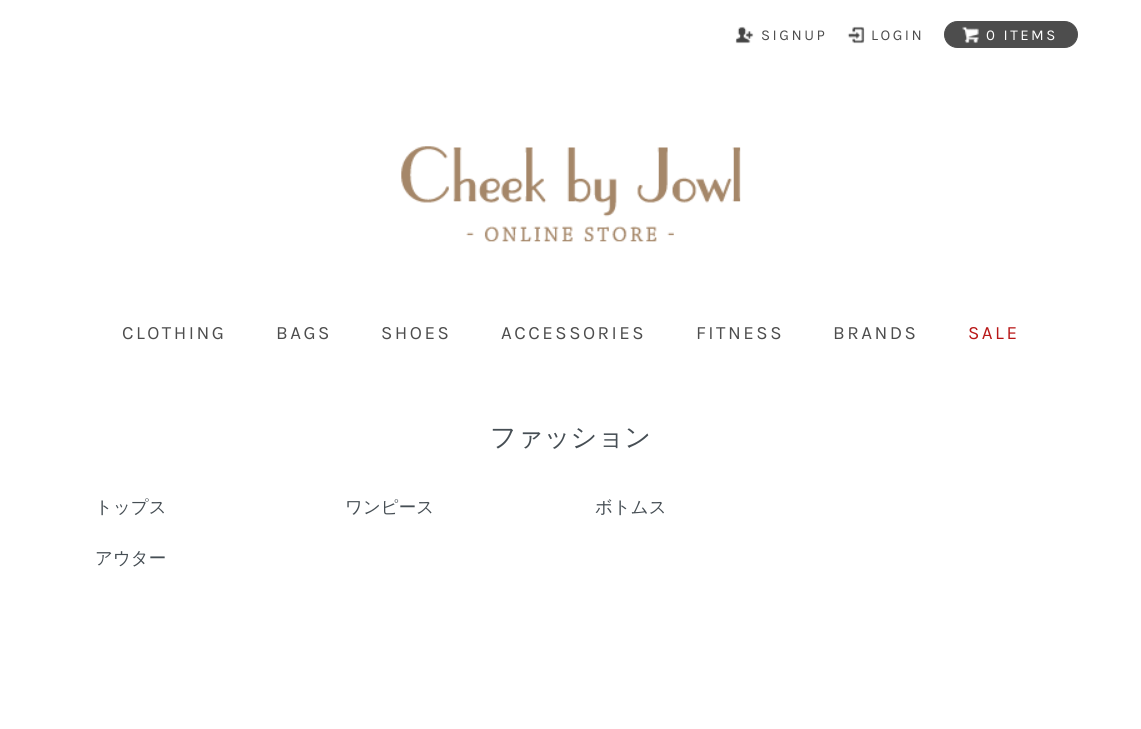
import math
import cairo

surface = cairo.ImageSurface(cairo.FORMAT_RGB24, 1141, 729)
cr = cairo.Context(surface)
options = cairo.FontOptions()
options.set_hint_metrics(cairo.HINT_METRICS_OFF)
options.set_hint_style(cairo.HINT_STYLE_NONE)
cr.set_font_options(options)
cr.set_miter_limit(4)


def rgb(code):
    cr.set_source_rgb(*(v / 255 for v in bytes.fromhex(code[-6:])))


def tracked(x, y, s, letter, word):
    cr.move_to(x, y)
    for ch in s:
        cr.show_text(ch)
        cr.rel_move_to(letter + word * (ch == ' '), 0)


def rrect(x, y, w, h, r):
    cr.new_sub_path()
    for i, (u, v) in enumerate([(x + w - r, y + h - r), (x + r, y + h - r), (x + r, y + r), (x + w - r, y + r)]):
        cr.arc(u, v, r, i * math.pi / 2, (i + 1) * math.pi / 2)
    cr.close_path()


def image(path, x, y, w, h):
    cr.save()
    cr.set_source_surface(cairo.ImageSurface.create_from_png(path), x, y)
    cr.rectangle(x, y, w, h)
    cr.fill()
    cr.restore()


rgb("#ffffff")
cr.paint()
image("img/1.png", 735, 26, 19, 18)
image("img/2.png", 847, 26, 18, 18)
rgb("#4d4d4d")
rrect(944.5, 21.5, 133, 26, 13)
cr.fill_preserve()
cr.set_line_width(1)
cr.stroke()
image("img/3.png", 962, 26, 17, 18)
image("img/4.png", 401, 146, 340, 96)
cr.select_font_face("Karla")
cr.set_font_size(15)
tracked(761, 40, "SIGNUP", 2.5, 0)
tracked(871, 40, "LOGIN", 2.5, 0)
rgb("#ffffff")
tracked(986, 40, "0 ITEMS", 2.5, 0)
cr.set_font_size(18.75)
rgb("#4d4d4d")
for x, y, s in [
    (122, 339, "CLOTHING"),
    (276, 339, "BAGS"),
    (381, 339, "SHOES"),
    (501, 339, "ACCESSORIES"),
    (696, 339, "FITNESS"),
    (833, 339, "BRANDS"),
]:
    tracked(x, y, s, 2.5, 0)
rgb("#b81717")
tracked(968, 339, "SALE", 2.5, 0)
cr.select_font_face("WenQuanYi Zen Hei Medium")
cr.set_font_size(26.25)
rgb("#464e54")
cr.move_to(490, 446)
cr.show_text("ファッション")
cr.set_font_size(17.5)
for x, y, s in [
    (95, 513, "トップス"),
    (345, 513, "ワンピース"),
    (595, 513, "ボトムス"),
    (95, 564, "アウター"),
]:
    cr.move_to(x, y)
    cr.show_text(s)
surface.write_to_png("page.png")
